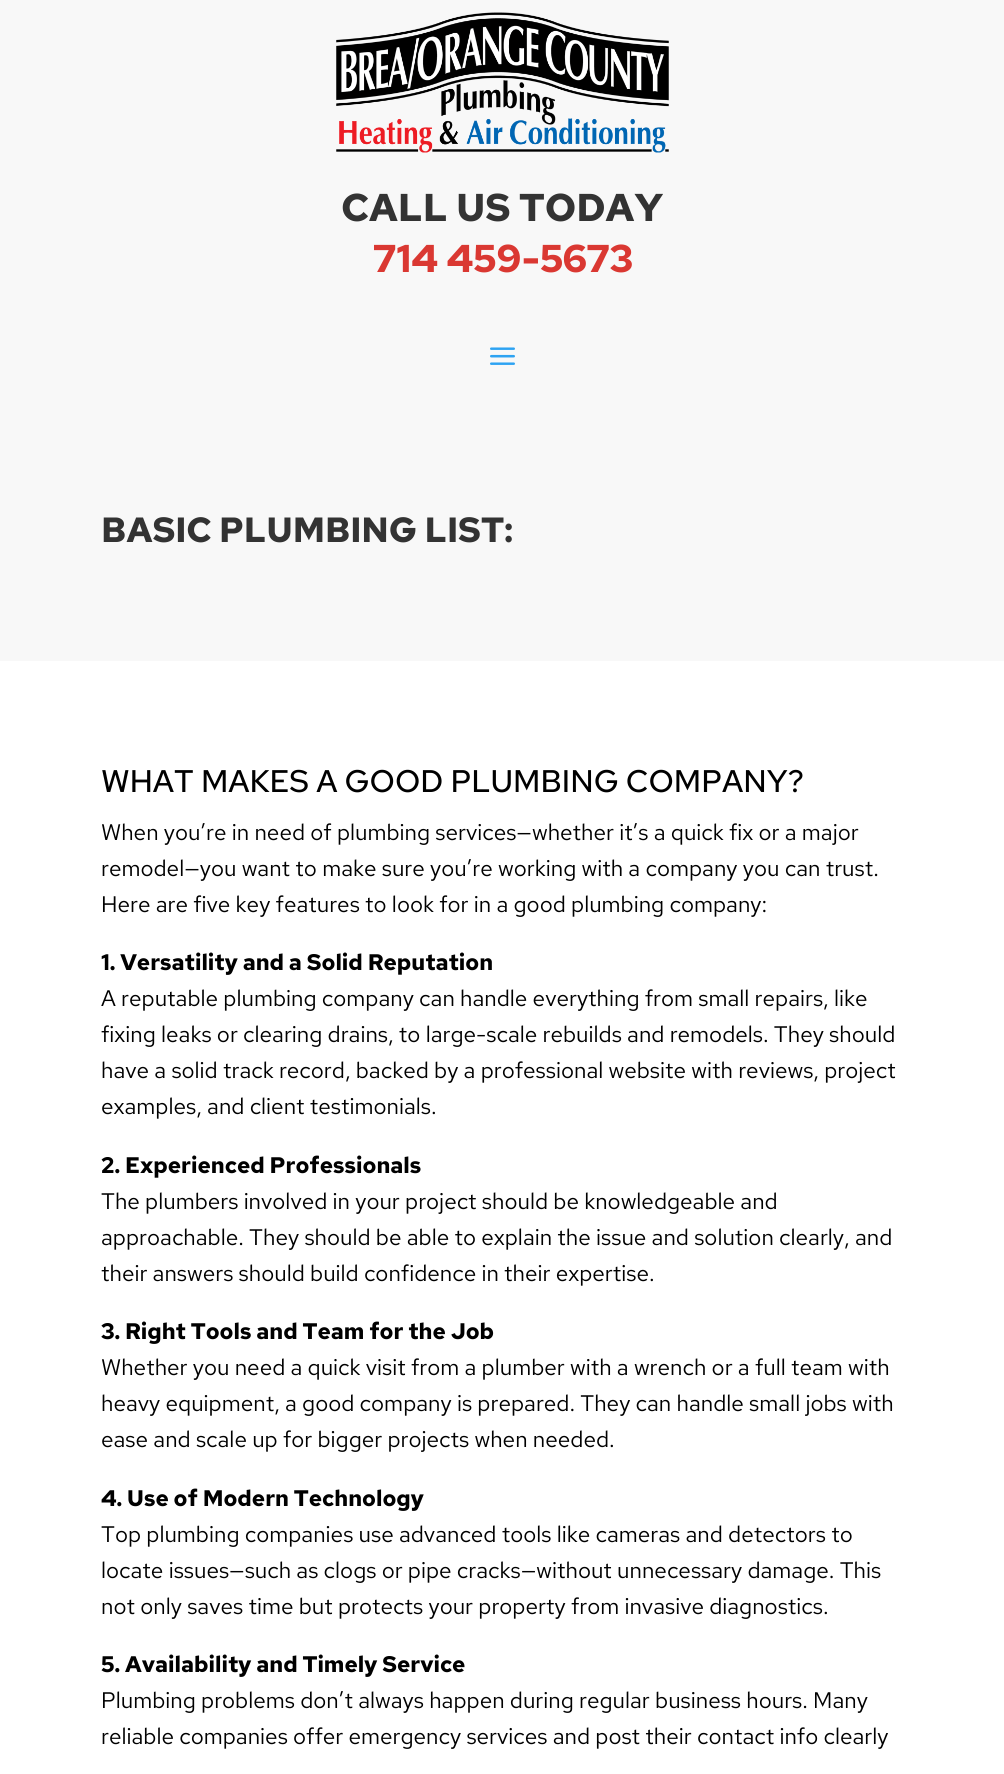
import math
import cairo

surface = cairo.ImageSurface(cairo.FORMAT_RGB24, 1004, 1774)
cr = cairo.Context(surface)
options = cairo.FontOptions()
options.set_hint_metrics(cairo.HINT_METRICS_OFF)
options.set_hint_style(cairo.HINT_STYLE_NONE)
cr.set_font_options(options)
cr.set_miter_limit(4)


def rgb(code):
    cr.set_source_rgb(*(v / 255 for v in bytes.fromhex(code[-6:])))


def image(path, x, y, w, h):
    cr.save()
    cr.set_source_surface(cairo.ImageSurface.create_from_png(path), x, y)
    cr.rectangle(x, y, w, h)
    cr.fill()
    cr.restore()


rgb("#ffffff")
cr.paint()
rgb("#f8f8f8")
cr.rectangle(0, 0, 1004, 661)
cr.fill()
image("img/1.png", 336, 12, 333, 141)
image("img/2.png", 490, 347, 25, 18)
cr.select_font_face("Red Hat Text", cairo.FONT_SLANT_NORMAL, cairo.FONT_WEIGHT_BOLD)
cr.set_font_size(38.75)
rgb("#333333")
cr.move_to(341, 221)
cr.show_text("CALL US TODAY")
rgb("#da3832")
cr.move_to(373, 272)
cr.show_text("714 459-5673")
cr.set_font_size(35)
rgb("#333333")
cr.move_to(101, 542)
cr.show_text("BASIC PLUMBING LIST:")
cr.select_font_face("Red Hat Text Medium")
cr.set_font_size(31.25)
rgb("#000000")
cr.move_to(101, 792)
cr.show_text("WHAT MAKES A GOOD PLUMBING COMPANY?")
cr.select_font_face("Red Hat Text")
cr.set_font_size(22.5)
for x, y, s in [
    (101, 840, "When you’re in need of plumbing services—whether it’s a quick fix or a major"),
    (101, 876, "remodel—you want to make sure you’re working with a company you can trust."),
    (101, 912, "Here are five key features to look for in a good plumbing company:"),
]:
    cr.move_to(x, y)
    cr.show_text(s)
cr.select_font_face("Red Hat Text", cairo.FONT_SLANT_NORMAL, cairo.FONT_WEIGHT_BOLD)
cr.move_to(101, 970)
cr.show_text("1. Versatility and a Solid Reputation")
cr.select_font_face("Red Hat Text")
for x, y, s in [
    (101, 1006, "A reputable plumbing company can handle everything from small repairs, like"),
    (101, 1042, "fixing leaks or clearing drains, to large-scale rebuilds and remodels. They should"),
    (101, 1078, "have a solid track record, backed by a professional website with reviews, project"),
    (101, 1114, "examples, and client testimonials."),
]:
    cr.move_to(x, y)
    cr.show_text(s)
cr.select_font_face("Red Hat Text", cairo.FONT_SLANT_NORMAL, cairo.FONT_WEIGHT_BOLD)
cr.move_to(101, 1173)
cr.show_text("2. Experienced Professionals")
cr.select_font_face("Red Hat Text")
for x, y, s in [
    (101, 1209, "The plumbers involved in your project should be knowledgeable and"),
    (101, 1245, "approachable. They should be able to explain the issue and solution clearly, and"),
    (101, 1281, "their answers should build confidence in their expertise."),
]:
    cr.move_to(x, y)
    cr.show_text(s)
cr.select_font_face("Red Hat Text", cairo.FONT_SLANT_NORMAL, cairo.FONT_WEIGHT_BOLD)
cr.move_to(101, 1339)
cr.show_text("3. Right Tools and Team for the Job")
cr.select_font_face("Red Hat Text")
for x, y, s in [
    (101, 1375, "Whether you need a quick visit from a plumber with a wrench or a full team with"),
    (101, 1411, "heavy equipment, a good company is prepared. They can handle small jobs with"),
    (101, 1447, "ease and scale up for bigger projects when needed."),
]:
    cr.move_to(x, y)
    cr.show_text(s)
cr.select_font_face("Red Hat Text", cairo.FONT_SLANT_NORMAL, cairo.FONT_WEIGHT_BOLD)
cr.move_to(101, 1506)
cr.show_text("4. Use of Modern Technology")
cr.select_font_face("Red Hat Text")
for x, y, s in [
    (101, 1542, "Top plumbing companies use advanced tools like cameras and detectors to"),
    (101, 1578, "locate issues—such as clogs or pipe cracks—without unnecessary damage. This"),
    (101, 1614, "not only saves time but protects your property from invasive diagnostics."),
]:
    cr.move_to(x, y)
    cr.show_text(s)
cr.select_font_face("Red Hat Text", cairo.FONT_SLANT_NORMAL, cairo.FONT_WEIGHT_BOLD)
cr.move_to(101, 1672)
cr.show_text("5. Availability and Timely Service")
cr.select_font_face("Red Hat Text")
cr.move_to(101, 1708)
cr.show_text("Plumbing problems don’t always happen during regular business hours. Many")
cr.move_to(101, 1744)
cr.show_text("reliable companies offer emergency services and post their contact info clearly")
surface.write_to_png("page.png")
